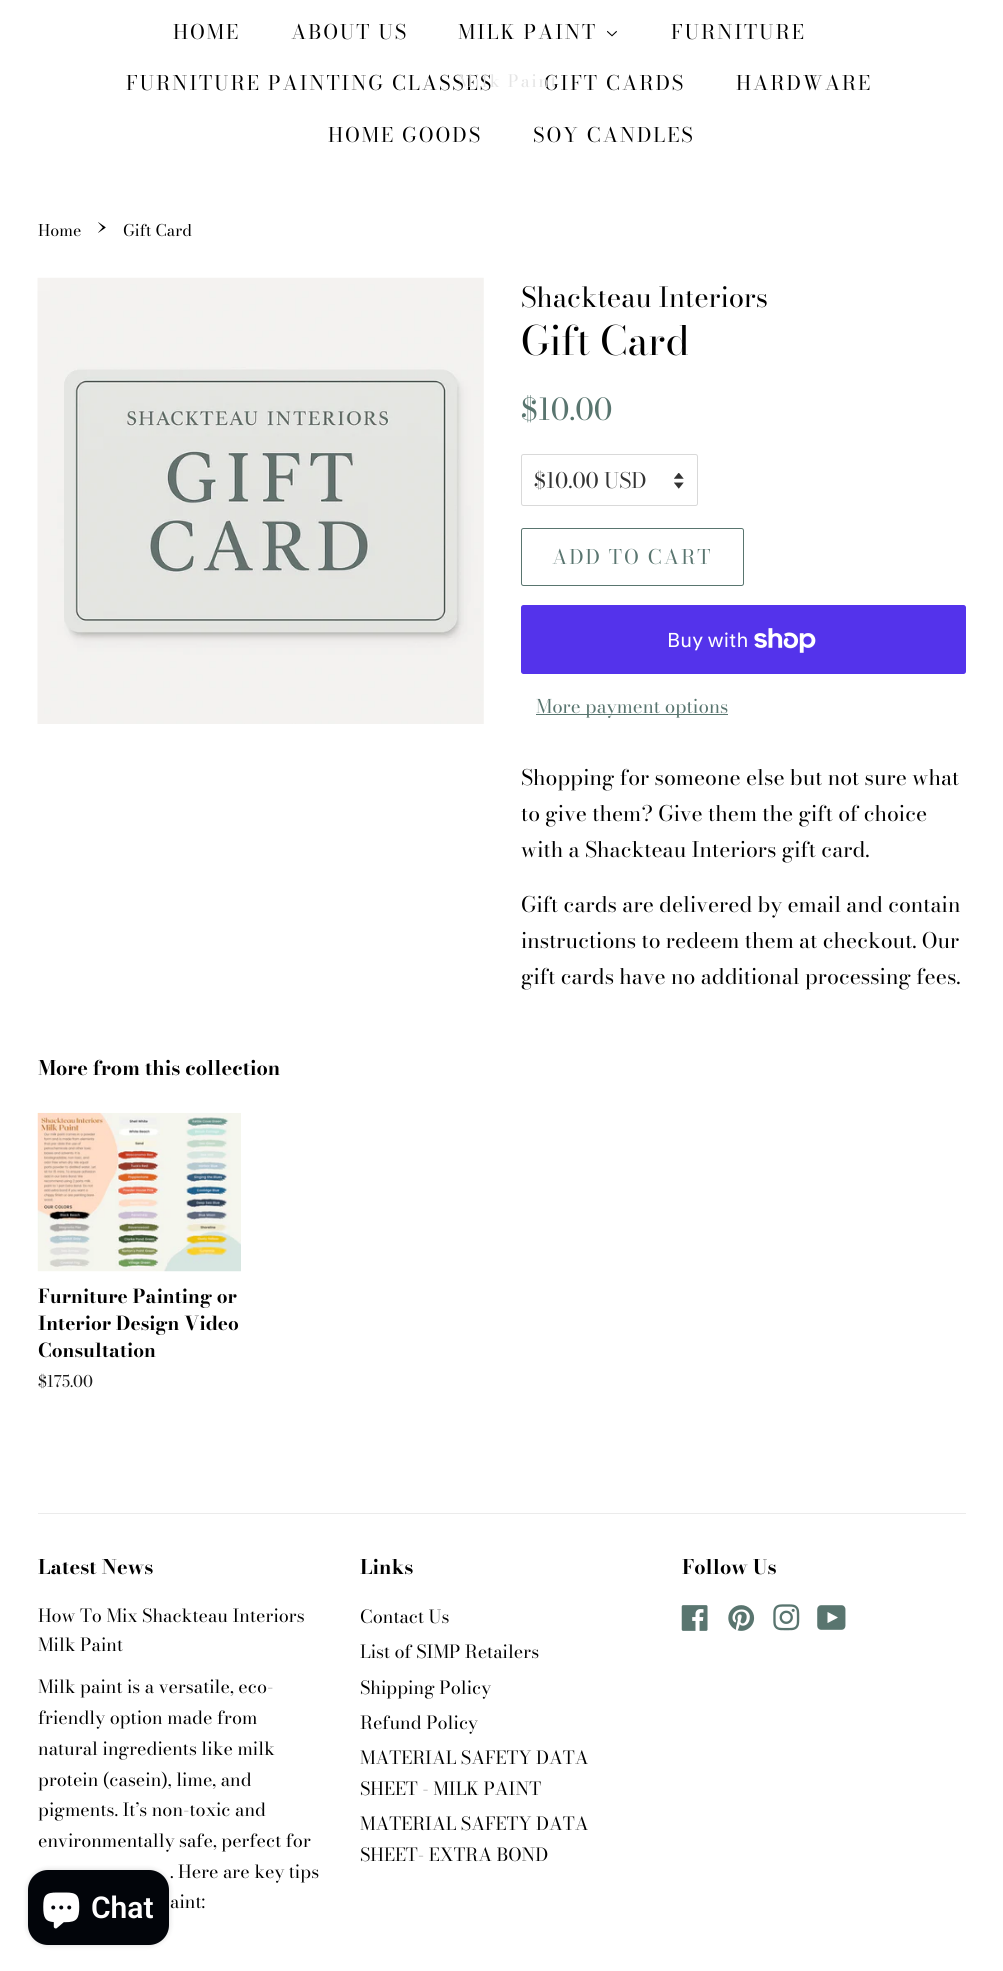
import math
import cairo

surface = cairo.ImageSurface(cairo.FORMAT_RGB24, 1003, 1971)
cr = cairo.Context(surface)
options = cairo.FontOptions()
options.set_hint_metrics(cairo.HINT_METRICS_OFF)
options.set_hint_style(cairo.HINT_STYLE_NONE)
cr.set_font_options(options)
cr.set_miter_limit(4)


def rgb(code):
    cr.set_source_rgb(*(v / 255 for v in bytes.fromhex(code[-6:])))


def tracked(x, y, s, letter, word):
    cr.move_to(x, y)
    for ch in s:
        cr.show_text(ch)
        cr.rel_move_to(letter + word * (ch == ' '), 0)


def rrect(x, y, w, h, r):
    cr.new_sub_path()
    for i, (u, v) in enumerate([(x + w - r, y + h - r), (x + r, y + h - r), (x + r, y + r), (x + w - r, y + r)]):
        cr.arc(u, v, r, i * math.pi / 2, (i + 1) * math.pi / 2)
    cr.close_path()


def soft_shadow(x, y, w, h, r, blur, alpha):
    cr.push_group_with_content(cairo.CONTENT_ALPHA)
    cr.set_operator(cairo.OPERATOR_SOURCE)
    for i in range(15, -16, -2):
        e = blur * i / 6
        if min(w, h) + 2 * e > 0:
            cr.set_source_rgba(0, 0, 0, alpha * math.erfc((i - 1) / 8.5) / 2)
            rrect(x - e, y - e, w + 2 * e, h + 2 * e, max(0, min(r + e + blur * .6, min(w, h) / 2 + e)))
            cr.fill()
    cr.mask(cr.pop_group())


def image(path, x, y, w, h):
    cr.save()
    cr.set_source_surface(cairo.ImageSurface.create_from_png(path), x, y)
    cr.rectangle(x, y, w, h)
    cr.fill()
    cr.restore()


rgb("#ffffff")
cr.paint()
image("img/1.png", 607, 30, 10, 7)
image("img/2.png", 37, 277, 447, 447)
image("img/3.png", 674, 473, 10, 16)
rrect(521.5, 454.5, 176, 51, 2)
rgb("#d9d9d9")
cr.set_line_width(1)
cr.stroke()
rrect(521.5, 528.5, 222, 57, 2)
rgb("#59756f")
cr.stroke()
rgb("#5433eb")
rrect(521, 605, 445, 69, 2.5)
cr.fill()
image("img/4.png", 754, 628, 62, 25)
rgb("#59756f")
cr.rectangle(536, 714, 192, 1)
cr.fill()
image("img/5.png", 37, 1112, 204, 160)
rgb("#ebebeb")
cr.rectangle(38, 1513, 928, 1)
cr.fill()
image("img/6.png", 681, 1605, 27, 26)
image("img/7.png", 728, 1605, 27, 26)
image("img/8.png", 773, 1604, 27, 27)
image("img/9.png", 817, 1605, 29, 25)
rgb("#000000")
soft_shadow(28, 1870, 141, 75, 20, 3, 0.15)
rgb("#02050a")
rrect(28, 1870, 141, 75, 20)
cr.fill()
image("img/10.png", 43, 1892, 37, 37)
cr.select_font_face("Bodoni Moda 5")
cr.set_font_size(20)
rgb("#000000")
for x, y, s in [
    (173, 39, "HOME"),
    (291, 39, "ABOUT US"),
    (458, 39, "MILK PAINT"),
    (671, 39, "FURNITURE"),
    (126, 90, "FURNITURE PAINTING CLASSES"),
    (544, 90, "GIFT CARDS"),
]:
    tracked(x, y, s, 2, 0)
cr.select_font_face("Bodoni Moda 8")
cr.set_font_size(17)
rgb("#e4e4e4")
tracked(458, 87, "Milk Paint", 2, 0)
cr.select_font_face("Bodoni Moda 5")
cr.set_font_size(20)
rgb("#000000")
for x, y, s in [
    (736, 90, "HARDWARE"),
    (328, 142, "HOME GOODS"),
    (533, 142, "SOY CANDLES"),
]:
    tracked(x, y, s, 2, 0)
cr.select_font_face("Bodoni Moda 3")
cr.set_font_size(16)
cr.move_to(38, 236)
cr.show_text("Home")
cr.set_font_size(22)
cr.move_to(97, 236)
cr.show_text("›")
cr.set_font_size(16)
cr.move_to(123, 236)
cr.show_text("Gift Card")
cr.select_font_face("Bodoni Moda")
cr.set_font_size(27.5)
cr.move_to(521, 307)
cr.show_text("Shackteau Interiors")
cr.select_font_face("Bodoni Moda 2")
cr.set_font_size(40)
cr.move_to(521, 355)
cr.show_text("Gift Card")
cr.select_font_face("Bodoni Moda 3")
cr.set_font_size(30)
rgb("#59756f")
cr.move_to(521, 420)
cr.show_text("$10.00")
cr.select_font_face("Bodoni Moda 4")
cr.set_font_size(21.25)
rgb("#333333")
cr.move_to(534, 488)
cr.show_text("$10.00 USD")
cr.select_font_face("Bodoni Moda 5")
cr.set_font_size(20)
rgb("#59756f")
tracked(552, 564, "ADD TO CART", 2, 0)
cr.select_font_face("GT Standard")
rgb("#ffffff")
cr.move_to(667, 647)
cr.show_text("Buy with")
cr.select_font_face("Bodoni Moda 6")
cr.set_font_size(18.75)
rgb("#59756f")
cr.move_to(536, 713)
cr.show_text("More payment options")
cr.select_font_face("Bodoni Moda 4")
cr.set_font_size(21.25)
rgb("#000000")
for x, y, s in [
    (521, 785, "Shopping for someone else but not sure what"),
    (521, 821, "to give them? Give them the gift of choice"),
    (521, 857, "with a Shackteau Interiors gift card."),
    (521, 912, "Gift cards are delivered by email and contain"),
    (521, 948, "instructions to redeem them at checkout. Our"),
    (521, 984, "gift cards have no additional processing fees."),
]:
    cr.move_to(x, y)
    cr.show_text(s)
cr.select_font_face("Bodoni Moda", cairo.FONT_SLANT_NORMAL, cairo.FONT_WEIGHT_BOLD)
cr.set_font_size(20)
cr.move_to(38, 1075)
cr.show_text("More from this collection")
cr.select_font_face("Bodoni Moda 2", cairo.FONT_SLANT_NORMAL, cairo.FONT_WEIGHT_BOLD)
cr.set_font_size(19.1)
for x, y, s in [
    (38, 1303, "Furniture Painting or"),
    (38, 1330, "Interior Design Video"),
    (38, 1357, "Consultation"),
]:
    cr.move_to(x, y)
    cr.show_text(s)
cr.select_font_face("Bodoni Moda 3")
cr.set_font_size(16)
rgb("#1a1a1a")
cr.move_to(38, 1387)
cr.show_text("$175.00")
cr.select_font_face("Bodoni Moda", cairo.FONT_SLANT_NORMAL, cairo.FONT_WEIGHT_BOLD)
cr.set_font_size(20)
rgb("#000000")
cr.move_to(38, 1574)
cr.show_text("Latest News")
cr.select_font_face("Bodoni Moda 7")
cr.set_font_size(18)
for x, y, s in [
    (38, 1622, "How To Mix Shackteau Interiors"),
    (38, 1651, "Milk Paint"),
    (38, 1693, "Milk paint is a versatile, eco-"),
    (38, 1724, "friendly option made from"),
    (38, 1755, "natural ingredients like milk"),
    (38, 1786, "protein (casein), lime, and"),
    (38, 1816, "pigments. It’s non-toxic and"),
    (38, 1847, "environmentally safe, perfect for"),
    (170, 1878, ". Here are key tips"),
    (170, 1908, "aint:"),
]:
    cr.move_to(x, y)
    cr.show_text(s)
cr.select_font_face("Bodoni Moda", cairo.FONT_SLANT_NORMAL, cairo.FONT_WEIGHT_BOLD)
cr.set_font_size(20)
cr.move_to(360, 1574)
cr.show_text("Links")
cr.select_font_face("Bodoni Moda 7")
cr.set_font_size(18)
for x, y, s in [
    (360, 1623, "Contact Us"),
    (360, 1658, "List of SIMP Retailers"),
    (360, 1694, "Shipping Policy"),
    (360, 1729, "Refund Policy"),
    (360, 1764, "MATERIAL SAFETY DATA"),
    (360, 1795, "SHEET - MILK PAINT"),
    (360, 1830, "MATERIAL SAFETY DATA"),
    (360, 1861, "SHEET- EXTRA BOND"),
]:
    cr.move_to(x, y)
    cr.show_text(s)
cr.select_font_face("Bodoni Moda", cairo.FONT_SLANT_NORMAL, cairo.FONT_WEIGHT_BOLD)
cr.set_font_size(20)
cr.move_to(682, 1574)
cr.show_text("Follow Us")
cr.select_font_face("Roboto SemiBold")
cr.set_font_size(30)
rgb("#ffffff")
cr.move_to(91, 1918)
cr.show_text("Chat")
surface.write_to_png("page.png")
